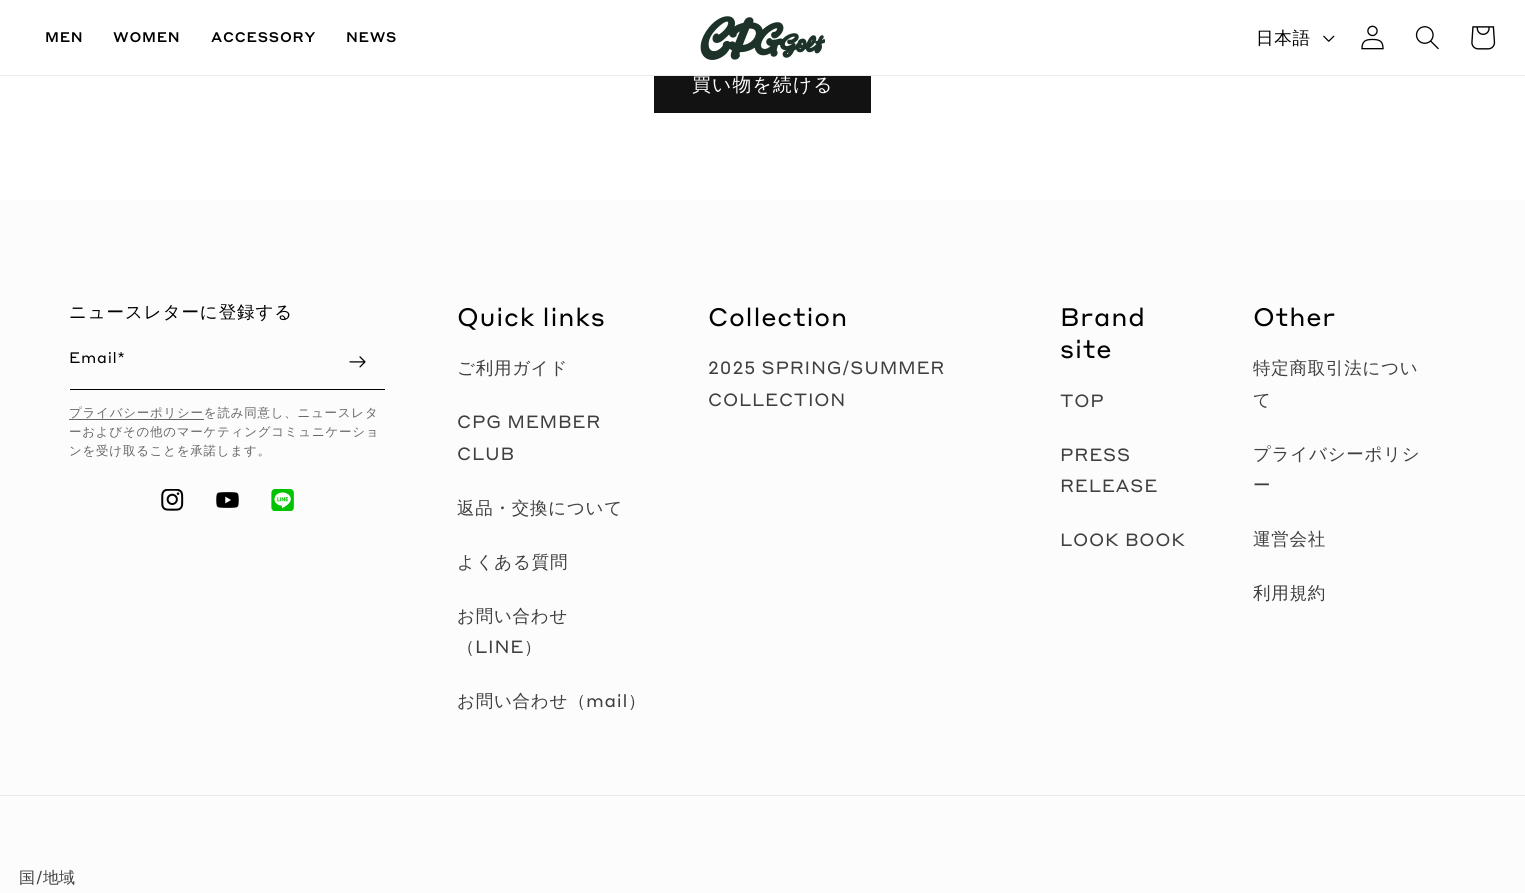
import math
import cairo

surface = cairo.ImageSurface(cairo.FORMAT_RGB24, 1525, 893)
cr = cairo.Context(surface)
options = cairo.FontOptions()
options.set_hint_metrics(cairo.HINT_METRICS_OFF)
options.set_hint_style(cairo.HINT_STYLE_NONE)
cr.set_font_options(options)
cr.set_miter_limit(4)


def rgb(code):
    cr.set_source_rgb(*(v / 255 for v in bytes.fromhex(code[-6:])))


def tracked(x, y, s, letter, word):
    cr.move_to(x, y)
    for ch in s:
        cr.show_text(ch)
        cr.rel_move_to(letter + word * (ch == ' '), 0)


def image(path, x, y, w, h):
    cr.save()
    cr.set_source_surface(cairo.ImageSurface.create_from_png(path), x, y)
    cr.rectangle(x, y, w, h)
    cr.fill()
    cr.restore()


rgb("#ffffff")
cr.paint()
image("img/1.png", 700, 16, 125, 44)
image("img/2.png", 1323, 35, 12, 7)
image("img/3.png", 1361, 25, 23, 25)
image("img/4.png", 1415, 26, 24, 24)
image("img/5.png", 1471, 26, 25, 24)
rgb("#121212")
cr.rectangle(654, 76, 217, 37)
cr.fill()
rgb("#fcfcfc")
cr.rectangle(0, 200, 1525, 693)
cr.fill()
image("img/6.png", 349, 356, 17, 12)
rgb("#000000")
cr.rectangle(70, 389, 315, 1)
cr.fill()
rgb("#666666")
cr.rectangle(69, 419, 135, 1)
cr.fill()
image("img/7.png", 161, 489, 23, 22)
image("img/8.png", 216, 492, 23, 16)
image("img/9.png", 271, 489, 23, 22)
rgb("#e8e8e8")
cr.rectangle(0, 795, 1525, 1)
cr.fill()
cr.select_font_face("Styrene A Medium")
cr.set_font_size(13.75)
rgb("#000000")
for x, y, s in [
    (45, 42, "MEN"),
    (113, 42, "WOMEN"),
    (211, 42, "ACCESSORY"),
    (346, 42, "NEWS"),
]:
    tracked(x, y, s, 0.75, 0)
cr.select_font_face("WenQuanYi Zen Hei Medium")
cr.set_font_size(17.5)
tracked(1256, 44, "日本語", 0.75, 0)
cr.set_font_size(18.75)
rgb("#ffffff")
tracked(692, 91, "買い物を続ける", 1.25, 0)
rgb("#ebebeb")
cr.rectangle(0, 75, 1525, 1)
cr.fill()
cr.set_font_size(17.5)
rgb("#000000")
tracked(69, 318, "ニュースレターに登録する", 0.9, 0)
cr.select_font_face("Styrene A")
cr.set_font_size(15)
tracked(69, 363, "Email*", 0.75, 0)
cr.select_font_face("WenQuanYi Zen Hei Medium")
cr.set_font_size(12.5)
rgb("#666666")
for x, y, s in [
    (69, 417, "プライバシーポリシーを読み同意し、ニュースレタ"),
    (69, 436, "ーおよびその他のマーケティングコミュニケーショ"),
    (69, 455, "ンを受け取ることを承諾します。"),
]:
    tracked(x, y, s, 0.75, 0)
cr.select_font_face("Styrene A")
cr.set_font_size(25)
rgb("#000000")
tracked(457, 326, "Quick links", 0.75, 0)
cr.select_font_face("WenQuanYi Zen Hei Medium")
cr.set_font_size(17.5)
rgb("#3f3f3f")
tracked(457, 374, "ご利用ガイド", 0.75, 0)
cr.select_font_face("Styrene A")
tracked(457, 428, "CPG MEMBER", 0.75, 0)
tracked(457, 460, "CLUB", 0.75, 0)
cr.select_font_face("WenQuanYi Zen Hei Medium")
for x, y, s in [
    (457, 514, "返品・交換について"),
    (457, 568, "よくある質問"),
    (457, 622, "お問い合わせ"),
    (457, 653, "（"),
]:
    tracked(x, y, s, 0.75, 0)
cr.select_font_face("Styrene A")
tracked(475, 653, "LINE", 0.75, 0)
cr.select_font_face("WenQuanYi Zen Hei Medium")
tracked(524, 653, "）", 0.75, 0)
tracked(457, 707, "お問い合わせ（", 0.75, 0)
cr.select_font_face("Styrene A")
tracked(586, 707, "mail", 0.75, 0)
cr.select_font_face("WenQuanYi Zen Hei Medium")
tracked(628, 707, "）", 0.75, 0)
cr.select_font_face("Styrene A")
cr.set_font_size(25)
rgb("#000000")
tracked(708, 326, "Collection", 0.75, 0)
cr.set_font_size(17.5)
rgb("#3f3f3f")
tracked(708, 374, "2025 SPRING/SUMMER", 0.75, 0)
tracked(708, 406, "COLLECTION", 0.75, 0)
cr.set_font_size(25)
rgb("#000000")
tracked(1060, 326, "Brand", 0.75, 0)
tracked(1060, 358, "site", 0.75, 0)
cr.set_font_size(17.5)
rgb("#3f3f3f")
for x, y, s in [
    (1060, 407, "TOP"),
    (1060, 461, "PRESS"),
    (1060, 492, "RELEASE"),
    (1060, 546, "LOOK BOOK"),
]:
    tracked(x, y, s, 0.75, 0)
cr.set_font_size(25)
rgb("#000000")
tracked(1253, 326, "Other", 0.75, 0)
cr.select_font_face("WenQuanYi Zen Hei Medium")
cr.set_font_size(17.5)
rgb("#3f3f3f")
for x, y, s in [
    (1253, 374, "特定商取引法につい"),
    (1253, 406, "て"),
    (1253, 460, "プライバシーポリシ"),
    (1253, 491, "ー"),
    (1253, 545, "運営会社"),
    (1253, 599, "利用規約"),
]:
    tracked(x, y, s, 0.75, 0)
cr.set_font_size(16)
cr.move_to(19, 883)
cr.show_text("国")
cr.select_font_face("Styrene A")
cr.move_to(36, 883)
cr.show_text("/")
cr.select_font_face("WenQuanYi Zen Hei Medium")
cr.move_to(43, 883)
cr.show_text("地域")
surface.write_to_png("page.png")
